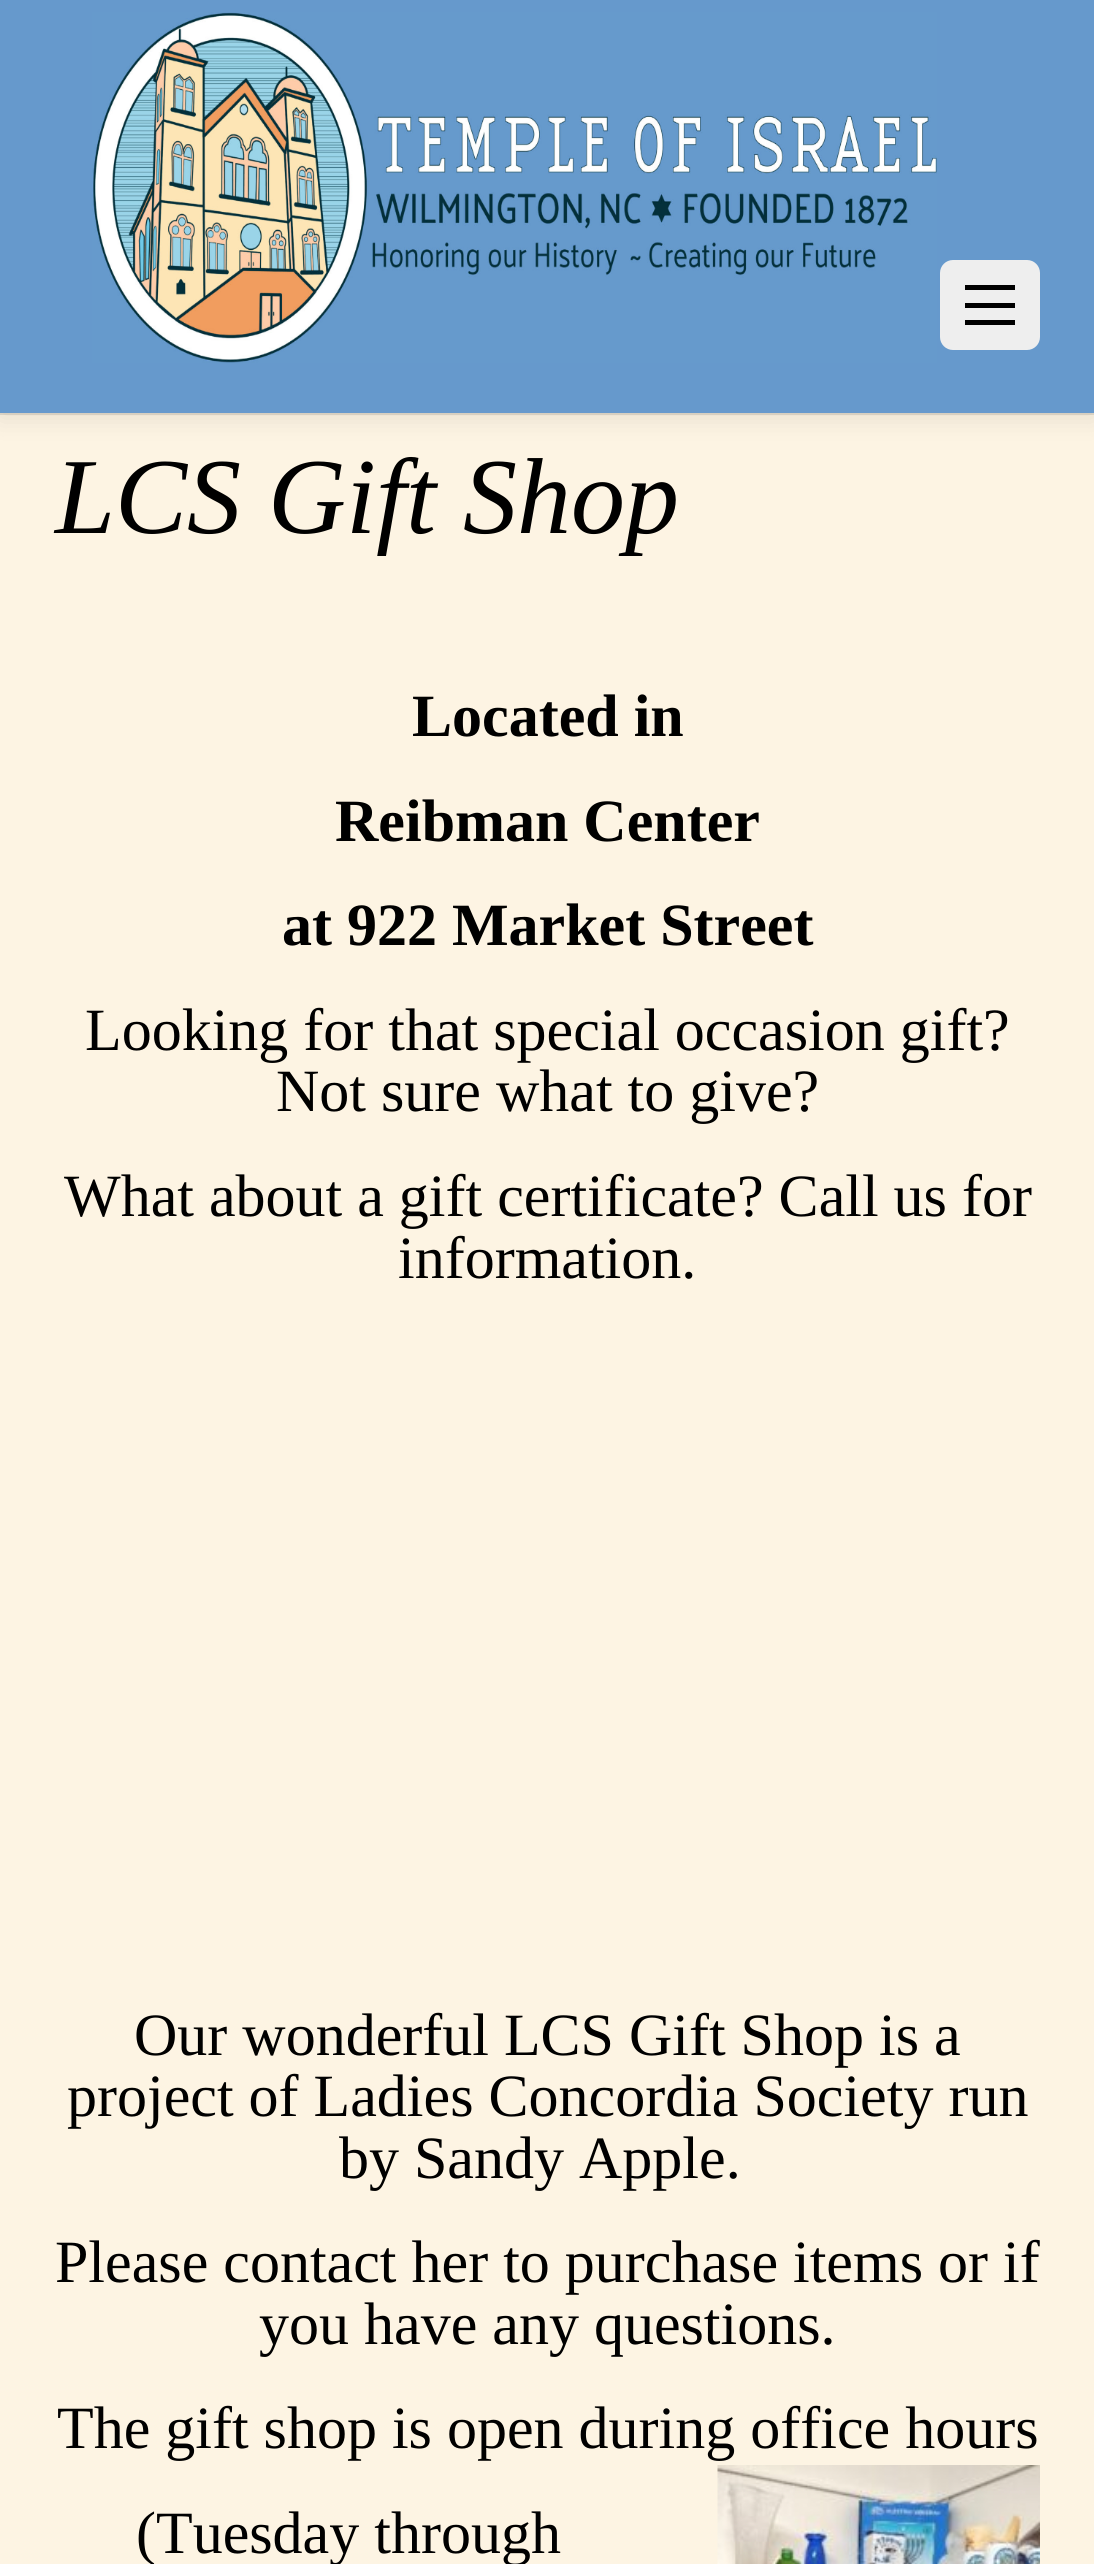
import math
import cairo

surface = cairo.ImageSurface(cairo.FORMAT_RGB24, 1094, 2564)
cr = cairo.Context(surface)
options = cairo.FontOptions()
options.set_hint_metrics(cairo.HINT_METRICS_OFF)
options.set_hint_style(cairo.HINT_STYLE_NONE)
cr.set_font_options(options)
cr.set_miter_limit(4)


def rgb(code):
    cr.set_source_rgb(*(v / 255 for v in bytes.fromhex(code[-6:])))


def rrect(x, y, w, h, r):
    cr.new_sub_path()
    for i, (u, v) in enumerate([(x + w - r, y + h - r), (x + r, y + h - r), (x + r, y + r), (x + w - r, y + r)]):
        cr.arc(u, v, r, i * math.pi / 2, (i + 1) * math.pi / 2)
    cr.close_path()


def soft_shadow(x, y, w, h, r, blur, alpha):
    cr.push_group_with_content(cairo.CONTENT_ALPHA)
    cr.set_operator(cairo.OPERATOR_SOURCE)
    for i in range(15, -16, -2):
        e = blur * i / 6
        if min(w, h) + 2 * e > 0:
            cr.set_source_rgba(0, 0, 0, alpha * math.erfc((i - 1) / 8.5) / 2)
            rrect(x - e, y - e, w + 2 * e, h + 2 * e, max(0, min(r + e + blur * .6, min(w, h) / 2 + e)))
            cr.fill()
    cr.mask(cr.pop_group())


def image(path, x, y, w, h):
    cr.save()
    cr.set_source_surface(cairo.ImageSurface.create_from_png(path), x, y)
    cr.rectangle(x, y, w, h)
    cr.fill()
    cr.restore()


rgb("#fdf4e3")
cr.paint()
rgb("#000000")
soft_shadow(0, 5, 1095, 413, 0, 12.5, 0.1)
cr.rectangle(-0.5, -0.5, 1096, 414)
cr.set_source_rgba(0, 0, 0, 0.1)
cr.set_line_width(3)
cr.stroke()
rgb("#6699cc")
cr.rectangle(0, 0, 1094, 413)
cr.fill()
image("img/1.png", 92, 12, 845, 351)
rgb("#eeeeee")
rrect(940, 260, 100, 90, 13)
cr.fill()
for x, y, w, h, color in [
    (965, 320, 50, 5, "#000000"),
    (965, 285, 50, 5, "#000000"),
    (965, 303, 50, 5, "#000000"),
]:
    rgb(color)
    cr.rectangle(x, y, w, h)
    cr.fill()
image("img/2.png", 717, 2465, 323, 99)
cr.select_font_face("Liberation Serif", cairo.FONT_SLANT_ITALIC)
cr.set_font_size(108)
cr.move_to(55, 533)
cr.show_text("LCS Gift Shop")
cr.select_font_face("Liberation Serif", cairo.FONT_SLANT_NORMAL, cairo.FONT_WEIGHT_BOLD)
cr.set_font_size(60)
for x, y, s in [
    (412, 736, "Located in"),
    (335, 841, "Reibman Center"),
    (282, 945, "at 922 Market Street"),
]:
    cr.move_to(x, y)
    cr.show_text(s)
cr.select_font_face("Liberation Serif")
for x, y, s in [
    (85, 1050, "Looking for that special occasion gift?"),
    (276, 1111, "Not sure what to give?"),
    (64, 1216, "What about a gift certificate? Call us for"),
    (398, 1278, "information."),
    (134, 2055, "Our wonderful LCS Gift Shop is a"),
    (67, 2116, "project of Ladies Concordia Society run"),
    (339, 2178, "by Sandy Apple."),
    (55, 2282, "Please contact her to purchase items or if"),
    (259, 2344, "you have any questions."),
    (57, 2448, "The gift shop is open during office hours"),
    (136, 2553, "(Tuesday through"),
]:
    cr.move_to(x, y)
    cr.show_text(s)
surface.write_to_png("page.png")
